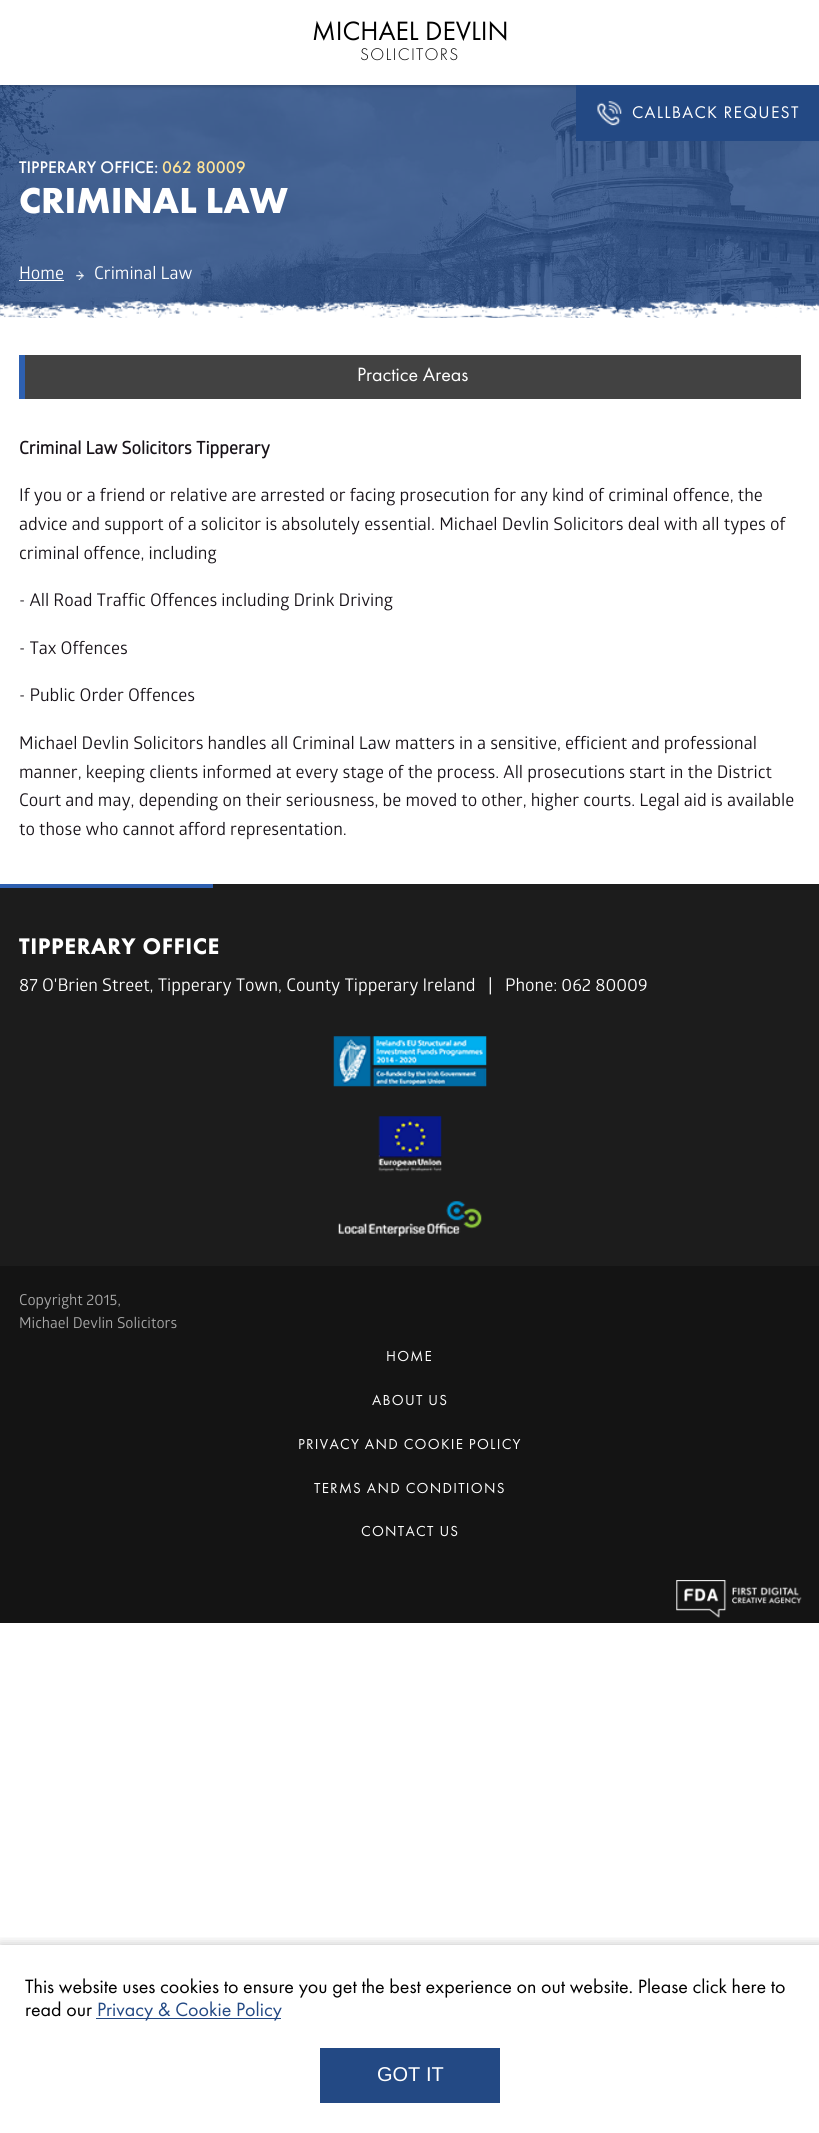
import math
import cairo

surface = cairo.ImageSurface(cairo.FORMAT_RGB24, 819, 2133)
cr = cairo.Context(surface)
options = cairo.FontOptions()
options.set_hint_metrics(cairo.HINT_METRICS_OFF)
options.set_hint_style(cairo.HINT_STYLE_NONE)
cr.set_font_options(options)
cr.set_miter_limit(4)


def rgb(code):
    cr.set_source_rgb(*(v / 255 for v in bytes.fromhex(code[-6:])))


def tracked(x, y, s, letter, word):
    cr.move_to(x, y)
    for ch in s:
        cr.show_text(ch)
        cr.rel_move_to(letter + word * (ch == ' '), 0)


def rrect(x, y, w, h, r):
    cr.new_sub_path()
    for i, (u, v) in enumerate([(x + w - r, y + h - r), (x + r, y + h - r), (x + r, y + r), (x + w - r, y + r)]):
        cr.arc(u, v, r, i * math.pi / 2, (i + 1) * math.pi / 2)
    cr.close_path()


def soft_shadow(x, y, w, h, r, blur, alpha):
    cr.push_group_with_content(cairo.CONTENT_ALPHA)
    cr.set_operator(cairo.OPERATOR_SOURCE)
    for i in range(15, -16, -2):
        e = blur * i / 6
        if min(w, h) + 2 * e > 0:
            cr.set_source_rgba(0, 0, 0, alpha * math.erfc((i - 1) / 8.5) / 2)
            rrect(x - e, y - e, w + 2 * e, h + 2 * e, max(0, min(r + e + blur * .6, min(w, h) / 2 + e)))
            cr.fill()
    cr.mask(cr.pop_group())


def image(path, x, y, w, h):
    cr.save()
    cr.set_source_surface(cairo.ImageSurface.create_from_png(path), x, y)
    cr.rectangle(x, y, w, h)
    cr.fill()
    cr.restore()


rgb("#ffffff")
cr.paint()
rgb("#486797")
cr.rectangle(4, 317, 773, 1)
cr.fill()
image("img/2.png", 0, 85, 819, 233)
cr.save()
cr.rectangle(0, 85, 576, 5)
cr.clip()
rgb("#020202")
soft_shadow(0, 1, 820, 85, 0, 2.5, 0.26)
cr.restore()
rgb("#234984")
cr.rectangle(576, 85, 243, 56)
cr.fill()
image("img/1.png", 597, 101, 25, 25)
image("img/3.png", 76, 271, 8, 9)
rgb("#ffffff")
cr.rectangle(19, 280, 45, 1)
cr.fill()
image("img/4.png", 0, 301, 819, 17)
for x, y, w, h, color in [
    (25, 355, 776, 44, "#424242"),
    (19, 355, 6, 44, "#2e60b0"),
    (0, 884, 819, 382, "#1c1c1c"),
    (0, 884, 213, 4, "#2e60b0"),
]:
    rgb(color)
    cr.rectangle(x, y, w, h)
    cr.fill()
image("img/5.png", 333, 1036, 154, 51)
image("img/6.png", 378, 1116, 64, 56)
image("img/7.png", 338, 1201, 144, 36)
rgb("#141414")
cr.rectangle(0, 1266, 819, 357)
cr.fill()
image("img/8.png", 676, 1580, 126, 38)
cr.save()
cr.rectangle(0, 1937, 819, 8)
cr.clip()
rgb("#000000")
soft_shadow(0, 1945, 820, 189, 0, 6, 0.25)
cr.restore()
rgb("#234984")
cr.rectangle(96, 2018, 185, 1)
cr.fill()
cr.rectangle(320, 2048, 180, 55)
cr.fill()
cr.select_font_face("Futura PT")
cr.set_font_size(27.5)
rgb("#000000")
cr.move_to(312, 40)
cr.show_text("MICHAEL DEVLIN")
cr.select_font_face("Futura PT Light")
cr.set_font_size(17.5)
tracked(360, 60, "SOLICITORS", 1.25, 0)
cr.select_font_face("Futura PT")
rgb("#ffffff")
tracked(632, 118, "CALLBACK REQUEST", 1.25, 0)
cr.select_font_face("Futura PT Medium")
cr.move_to(19, 173)
cr.show_text("TIPPERARY OFFICE:")
rgb("#ffe397")
cr.move_to(162, 173)
cr.show_text("062 80009")
cr.select_font_face("Futura PT", cairo.FONT_SLANT_NORMAL, cairo.FONT_WEIGHT_BOLD)
cr.set_font_size(37.5)
rgb("#ffffff")
cr.move_to(19, 213)
cr.show_text("CRIMINAL LAW")
cr.select_font_face("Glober")
cr.set_font_size(17.5)
cr.move_to(19, 279)
cr.show_text("Home")
cr.move_to(94, 279)
cr.show_text("Criminal Law")
cr.select_font_face("Futura PT")
cr.set_font_size(20)
cr.move_to(357, 381)
cr.show_text("Practice Areas")
cr.select_font_face("Glober", cairo.FONT_SLANT_NORMAL, cairo.FONT_WEIGHT_BOLD)
cr.set_font_size(17.5)
rgb("#181319")
cr.move_to(19, 454)
cr.show_text("Criminal Law Solicitors Tipperary")
cr.select_font_face("Glober")
for x, y, s in [
    (19, 501, "If you or a friend or relative are arrested or facing prosecution for any kind of criminal offence, the"),
    (19, 530, "advice and support of a solicitor is absolutely essential. Michael Devlin Solicitors deal with all types of"),
    (19, 559, "criminal offence, including"),
    (19, 606, "- All Road Traffic Offences including Drink Driving"),
    (19, 654, "- Tax Offences"),
    (19, 701, "- Public Order Offences"),
    (19, 749, "Michael Devlin Solicitors handles all Criminal Law matters in a sensitive, efficient and professional"),
    (19, 778, "manner, keeping clients informed at every stage of the process. All prosecutions start in the District"),
    (19, 806, "Court and may, depending on their seriousness, be moved to other, higher courts. Legal aid is available"),
    (19, 835, "to those who cannot afford representation."),
]:
    cr.move_to(x, y)
    cr.show_text(s)
cr.select_font_face("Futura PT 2", cairo.FONT_SLANT_NORMAL, cairo.FONT_WEIGHT_BOLD)
cr.set_font_size(22.5)
rgb("#ffffff")
tracked(19, 954, "TIPPERARY OFFICE", 1.25, 0)
cr.select_font_face("Glober")
cr.set_font_size(17.5)
cr.move_to(19, 991)
cr.show_text("87 O'Brien Street, Tipperary Town, County Tipperary Ireland   |   Phone: 062 80009")
cr.set_font_size(15)
rgb("#a9a9a9")
cr.move_to(19, 1305)
cr.show_text("Copyright 2015,")
cr.move_to(19, 1328)
cr.show_text("Michael Devlin Solicitors")
cr.select_font_face("Futura PT")
rgb("#ffffff")
for x, y, s in [
    (386, 1361, "HOME"),
    (372, 1405, "ABOUT US"),
    (298, 1449, "PRIVACY AND COOKIE POLICY"),
    (314, 1493, "TERMS AND CONDITIONS"),
    (361, 1536, "CONTACT US"),
]:
    tracked(x, y, s, 1.25, 0)
cr.set_font_size(20)
rgb("#000000")
cr.move_to(25, 1993)
cr.show_text("This website uses cookies to ensure you get the best experience on out website. Please click here to")
cr.move_to(25, 2016)
cr.show_text("read our")
rgb("#234984")
cr.move_to(97, 2016)
cr.show_text("Privacy & Cookie Policy")
cr.select_font_face("Liberation Sans")
rgb("#ffffff")
cr.move_to(377, 2081)
cr.show_text("GOT IT")
surface.write_to_png("page.png")
